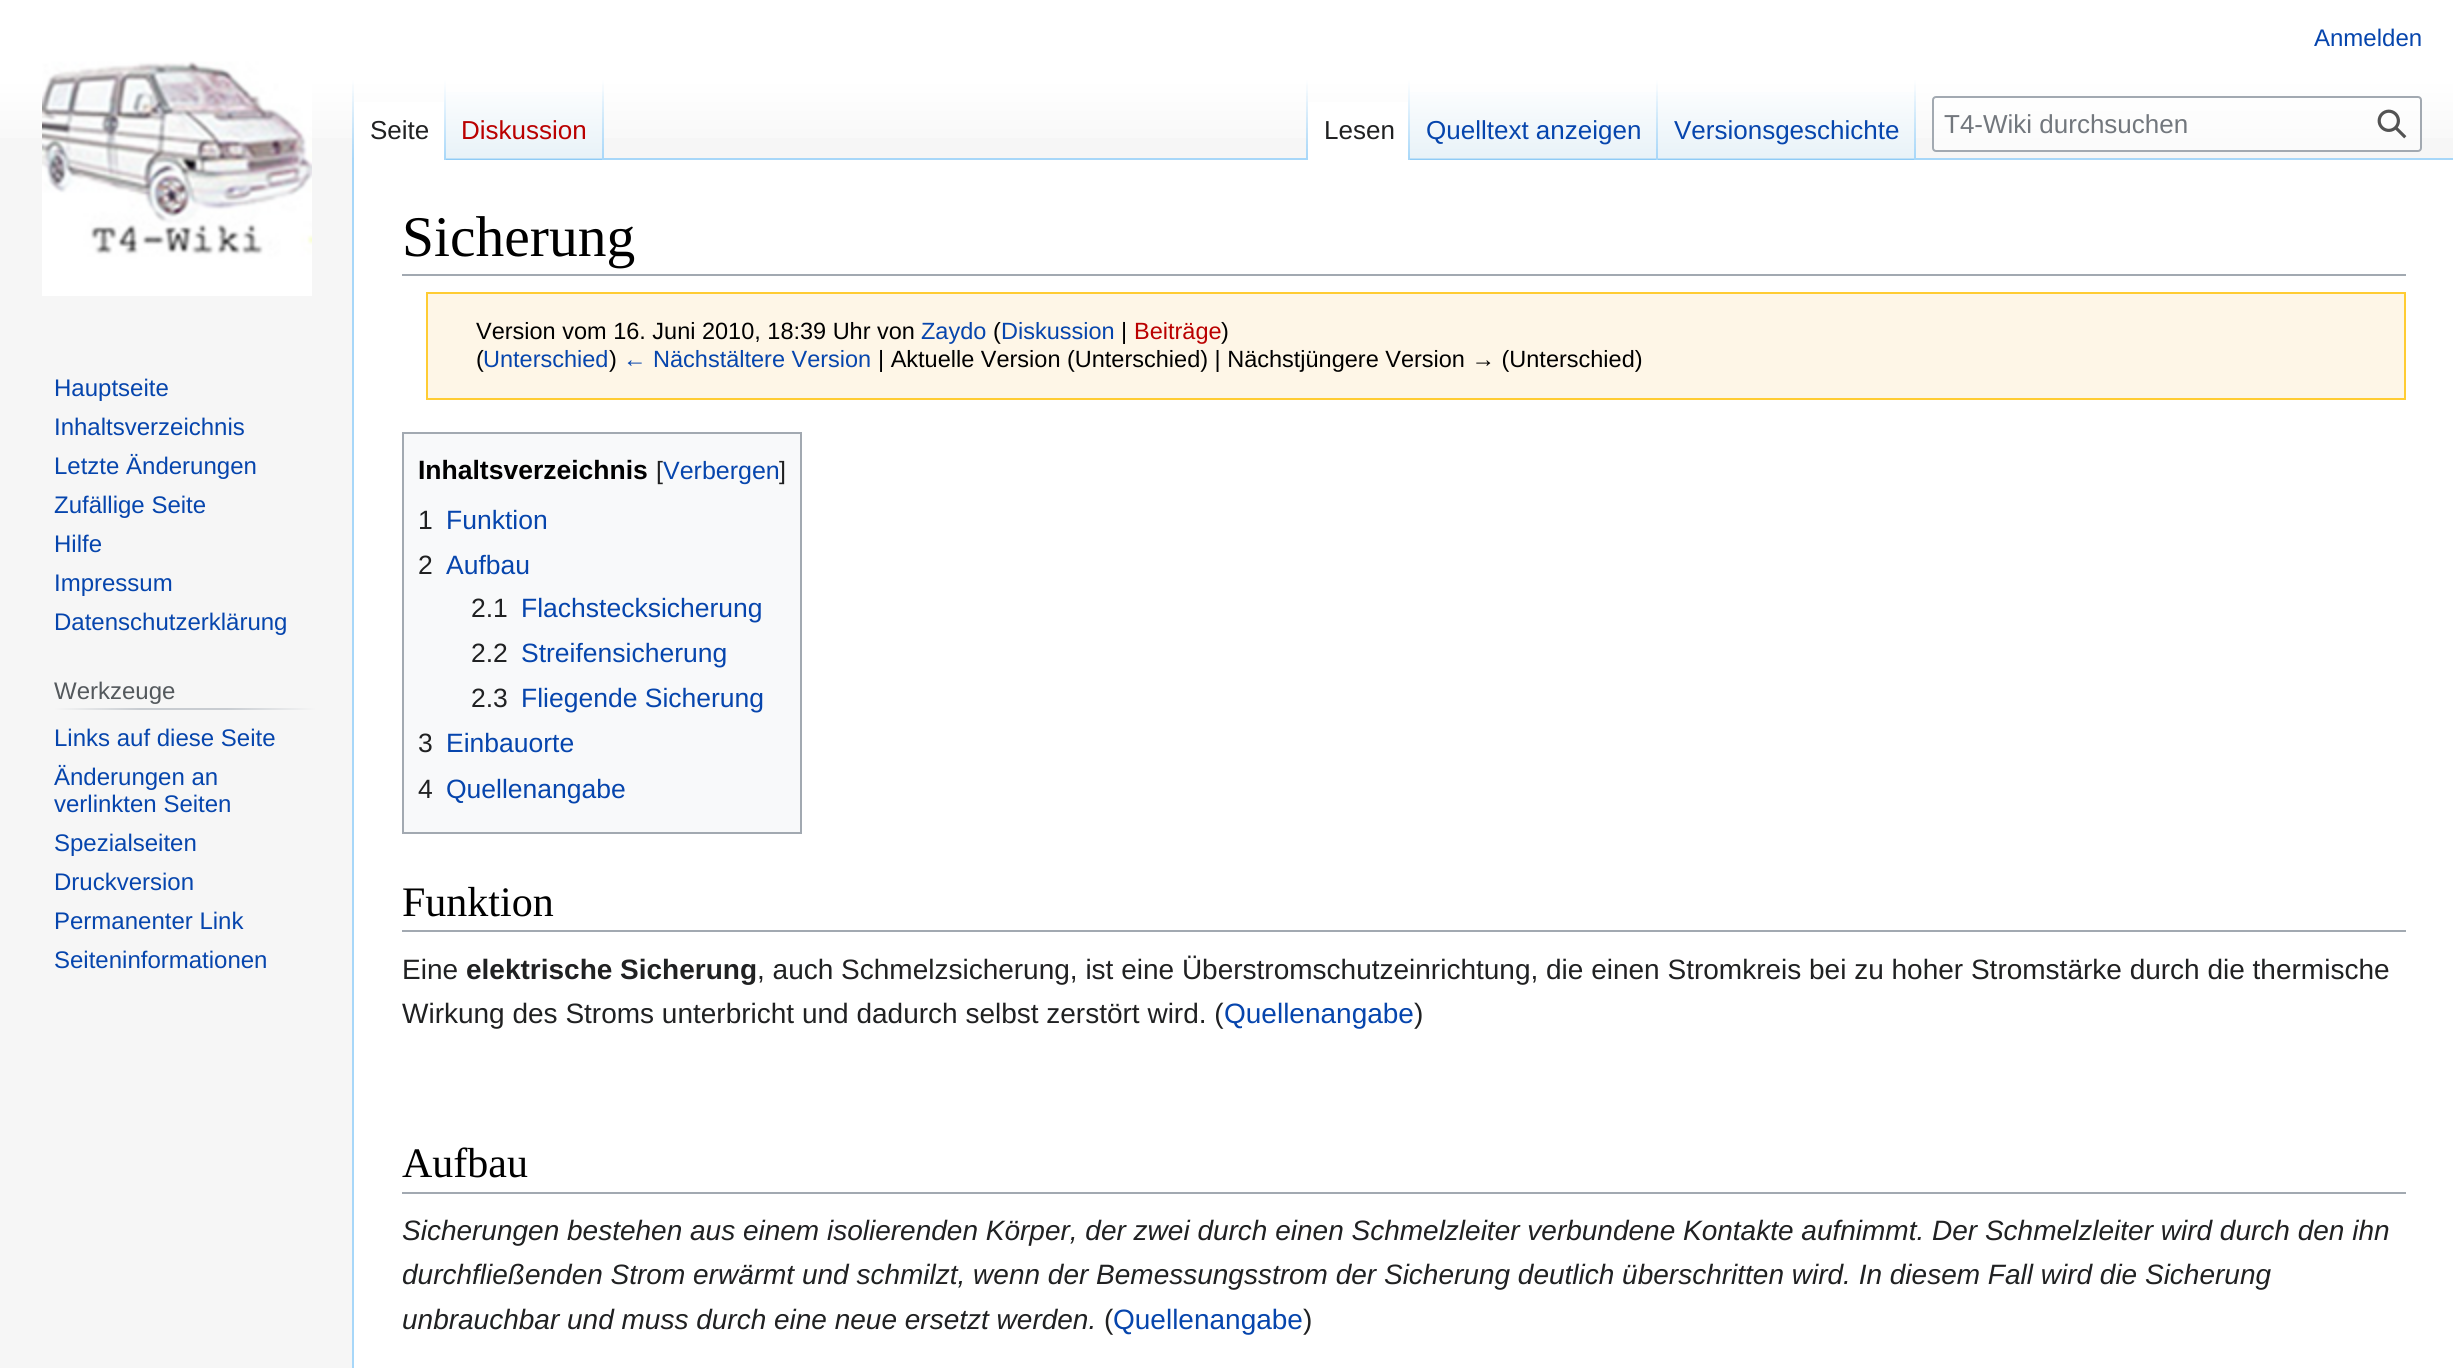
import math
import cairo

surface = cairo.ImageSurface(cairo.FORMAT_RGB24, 2453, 1368)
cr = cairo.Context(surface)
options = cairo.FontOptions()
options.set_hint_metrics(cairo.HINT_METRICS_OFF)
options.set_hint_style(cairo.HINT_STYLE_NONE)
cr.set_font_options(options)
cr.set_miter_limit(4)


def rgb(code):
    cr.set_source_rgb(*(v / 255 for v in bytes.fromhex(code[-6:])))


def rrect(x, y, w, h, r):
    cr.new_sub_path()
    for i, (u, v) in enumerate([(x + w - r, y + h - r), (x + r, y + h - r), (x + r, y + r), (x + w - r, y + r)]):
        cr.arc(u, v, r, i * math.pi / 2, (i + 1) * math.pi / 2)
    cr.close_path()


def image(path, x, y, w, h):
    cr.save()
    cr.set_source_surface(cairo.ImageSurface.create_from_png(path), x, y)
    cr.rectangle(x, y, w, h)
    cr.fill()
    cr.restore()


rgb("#f6f6f6")
cr.paint()
gradient = cairo.LinearGradient(1227, 0, 1227, 160)
gradient.add_color_stop_rgba(0.5, 1, 1, 1, 1)
gradient.add_color_stop_rgba(1, 0.965, 0.965, 0.965, 1)
cr.set_source(gradient)
cr.rectangle(0, 0, 2453, 138)
cr.fill()
rgb("#a7d7f9")
cr.rectangle(352, 158, 2, 1210)
cr.fill()
gradient = cairo.LinearGradient(353, 80, 353, 160)
gradient.add_color_stop_rgba(0, 0.655, 0.843, 0.976, 0)
gradient.add_color_stop_rgba(1, 0.655, 0.843, 0.976, 1)
cr.set_source(gradient)
cr.rectangle(352, 80, 2, 80)
cr.fill()
rgb("#ffffff")
cr.rectangle(354, 102, 90, 58)
cr.fill()
gradient = cairo.LinearGradient(445, 80, 445, 160)
gradient.add_color_stop_rgba(0, 1, 1, 1, 1)
gradient.add_color_stop_rgba(1, 0.655, 0.843, 0.976, 1)
cr.set_source(gradient)
cr.rectangle(444, 80, 2, 80)
cr.fill()
gradient = cairo.LinearGradient(525, 160, 525, 80)
gradient.add_color_stop_rgba(0, 0.467, 0.757, 0.965, 1)
gradient.add_color_stop_rgba(0.03, 0.91, 0.949, 0.973, 1)
gradient.add_color_stop_rgba(1, 1, 1, 1, 1)
cr.set_source(gradient)
cr.rectangle(446, 92, 158, 68)
cr.fill()
gradient = cairo.LinearGradient(603, 80, 603, 160)
gradient.add_color_stop_rgba(0, 0.655, 0.843, 0.976, 0)
gradient.add_color_stop_rgba(1, 0.655, 0.843, 0.976, 1)
cr.set_source(gradient)
cr.rectangle(602, 80, 2, 80)
cr.fill()
rgb("#a7d7f9")
cr.rectangle(604, 158, 1849, 2)
cr.fill()
gradient = cairo.LinearGradient(1307, 80, 1307, 160)
gradient.add_color_stop_rgba(0, 0.655, 0.843, 0.976, 0)
gradient.add_color_stop_rgba(1, 0.655, 0.843, 0.976, 1)
cr.set_source(gradient)
cr.rectangle(1306, 80, 2, 80)
cr.fill()
rgb("#ffffff")
cr.rectangle(1308, 102, 100, 58)
cr.fill()
gradient = cairo.LinearGradient(1409, 80, 1409, 160)
gradient.add_color_stop_rgba(0, 1, 1, 1, 1)
gradient.add_color_stop_rgba(1, 0.655, 0.843, 0.976, 1)
cr.set_source(gradient)
cr.rectangle(1408, 80, 2, 80)
cr.fill()
gradient = cairo.LinearGradient(1534, 160, 1534, 80)
gradient.add_color_stop_rgba(0, 0.467, 0.757, 0.965, 1)
gradient.add_color_stop_rgba(0.03, 0.91, 0.949, 0.973, 1)
gradient.add_color_stop_rgba(1, 1, 1, 1, 1)
cr.set_source(gradient)
cr.rectangle(1410, 92, 248, 68)
cr.fill()
gradient = cairo.LinearGradient(1657, 80, 1657, 160)
gradient.add_color_stop_rgba(0, 0.655, 0.843, 0.976, 0)
gradient.add_color_stop_rgba(1, 0.655, 0.843, 0.976, 1)
cr.set_source(gradient)
cr.rectangle(1656, 80, 2, 80)
cr.fill()
gradient = cairo.LinearGradient(1787, 160, 1787, 80)
gradient.add_color_stop_rgba(0, 0.467, 0.757, 0.965, 1)
gradient.add_color_stop_rgba(0.03, 0.91, 0.949, 0.973, 1)
gradient.add_color_stop_rgba(1, 1, 1, 1, 1)
cr.set_source(gradient)
cr.rectangle(1658, 92, 258, 68)
cr.fill()
gradient = cairo.LinearGradient(1915, 80, 1915, 160)
gradient.add_color_stop_rgba(0, 0.655, 0.843, 0.976, 0)
gradient.add_color_stop_rgba(1, 0.655, 0.843, 0.976, 1)
cr.set_source(gradient)
cr.rectangle(1914, 80, 2, 80)
cr.fill()
cr.set_source_rgba(1, 1, 1, 0.5)
rrect(1933, 97, 488, 54, 3)
cr.fill_preserve()
rgb("#a2a9b1")
cr.stroke()
image("img/1.png", 2377, 109, 30, 30)
image("img/2.png", 42, 61, 270, 235)
gradient = cairo.LinearGradient(54, 709, 316, 709)
gradient.add_color_stop_rgba(0, 0.965, 0.965, 0.965, 1)
gradient.add_color_stop_rgba(0.33, 0.784, 0.8, 0.82, 1)
gradient.add_color_stop_rgba(0.66, 0.784, 0.8, 0.82, 1)
gradient.add_color_stop_rgba(1, 0.965, 0.965, 0.965, 1)
cr.set_source(gradient)
cr.rectangle(54, 708, 262, 2)
cr.fill()
rgb("#ffffff")
cr.rectangle(354, 160, 2099, 1208)
cr.fill()
rgb("#a2a9b1")
cr.rectangle(402, 274, 2004, 2)
cr.fill()
rgb("#fef6e7")
cr.rectangle(427, 293, 1978, 106)
cr.fill_preserve()
rgb("#ffcc33")
cr.stroke()
rgb("#f8f9fa")
cr.rectangle(403, 433, 398, 400)
cr.fill_preserve()
rgb("#a2a9b1")
cr.stroke()
cr.rectangle(402, 930, 2004, 2)
cr.fill()
cr.rectangle(402, 1192, 2004, 2)
cr.fill()
cr.select_font_face("Liberation Sans")
cr.set_font_size(24)
rgb("#0645ad")
cr.move_to(2314, 46)
cr.show_text("Anmelden")
cr.set_font_size(26)
rgb("#202122")
cr.move_to(370, 139)
cr.show_text("Seite")
rgb("#ba0000")
cr.move_to(461, 139)
cr.show_text("Diskussion")
rgb("#202122")
cr.move_to(1324, 139)
cr.show_text("Lesen")
rgb("#0645ad")
cr.move_to(1426, 139)
cr.show_text("Quelltext anzeigen")
cr.move_to(1674, 139)
cr.show_text("Versionsgeschichte")
rgb("#72777d")
cr.move_to(1944, 133)
cr.show_text("T4-Wiki durchsuchen")
cr.set_font_size(24)
rgb("#0645ad")
for x, y, s in [
    (54, 396, "Hauptseite"),
    (54, 435, "Inhaltsverzeichnis"),
    (54, 474, "Letzte Änderungen"),
    (54, 513, "Zufällige Seite"),
    (54, 552, "Hilfe"),
    (54, 591, "Impressum"),
    (54, 630, "Datenschutzerklärung"),
]:
    cr.move_to(x, y)
    cr.show_text(s)
rgb("#54595d")
cr.move_to(54, 699)
cr.show_text("Werkzeuge")
rgb("#0645ad")
for x, y, s in [
    (54, 746, "Links auf diese Seite"),
    (54, 785, "Änderungen an"),
    (54, 812, "verlinkten Seiten"),
    (54, 851, "Spezialseiten"),
    (54, 890, "Druckversion"),
    (54, 929, "Permanenter Link"),
    (54, 968, "Seiteninformationen"),
]:
    cr.move_to(x, y)
    cr.show_text(s)
cr.select_font_face("Liberation Serif")
cr.set_font_size(57.5)
rgb("#000000")
cr.move_to(402, 256)
cr.show_text("Sicherung")
cr.select_font_face("Liberation Sans")
cr.set_font_size(23.5)
cr.move_to(476, 339)
cr.show_text("Version vom 16. Juni 2010, 18:39 Uhr von")
rgb("#0645ad")
cr.move_to(921, 339)
cr.show_text("Zaydo")
rgb("#000000")
cr.move_to(993, 339)
cr.show_text("(")
rgb("#0645ad")
cr.move_to(1001, 339)
cr.show_text("Diskussion")
rgb("#000000")
cr.move_to(1121, 339)
cr.show_text("|")
rgb("#ba0000")
cr.move_to(1134, 339)
cr.show_text("Beiträge")
rgb("#000000")
cr.move_to(1221, 339)
cr.show_text(")")
cr.move_to(476, 367)
cr.show_text("(")
rgb("#0645ad")
cr.move_to(483, 367)
cr.show_text("Unterschied")
rgb("#000000")
cr.move_to(609, 367)
cr.show_text(")")
rgb("#0645ad")
cr.move_to(623, 367)
cr.show_text("← Nächstältere Version")
rgb("#000000")
cr.move_to(878, 367)
cr.show_text("| Aktuelle Version (Unterschied) | Nächstjüngere Version → (Unterschied)")
cr.select_font_face("Liberation Sans", cairo.FONT_SLANT_NORMAL, cairo.FONT_WEIGHT_BOLD)
cr.set_font_size(26.5)
cr.move_to(418, 479)
cr.show_text("Inhaltsverzeichnis")
cr.select_font_face("Liberation Sans")
cr.set_font_size(25)
rgb("#202122")
cr.move_to(656, 479)
cr.show_text("[")
rgb("#0645ad")
cr.move_to(663, 479)
cr.show_text("Verbergen")
rgb("#202122")
cr.move_to(779, 479)
cr.show_text("]")
cr.set_font_size(26.5)
cr.move_to(418, 529)
cr.show_text("1")
rgb("#0645ad")
cr.move_to(446, 529)
cr.show_text("Funktion")
rgb("#202122")
cr.move_to(418, 574)
cr.show_text("2")
rgb("#0645ad")
cr.move_to(446, 574)
cr.show_text("Aufbau")
rgb("#202122")
cr.move_to(471, 617)
cr.show_text("2.1")
rgb("#0645ad")
cr.move_to(521, 617)
cr.show_text("Flachstecksicherung")
rgb("#202122")
cr.move_to(471, 662)
cr.show_text("2.2")
rgb("#0645ad")
cr.move_to(521, 662)
cr.show_text("Streifensicherung")
rgb("#202122")
cr.move_to(471, 707)
cr.show_text("2.3")
rgb("#0645ad")
cr.move_to(521, 707)
cr.show_text("Fliegende Sicherung")
rgb("#202122")
cr.move_to(418, 752)
cr.show_text("3")
rgb("#0645ad")
cr.move_to(446, 752)
cr.show_text("Einbauorte")
rgb("#202122")
cr.move_to(418, 798)
cr.show_text("4")
rgb("#0645ad")
cr.move_to(446, 798)
cr.show_text("Quellenangabe")
cr.select_font_face("Liberation Serif")
cr.set_font_size(42)
rgb("#000000")
cr.move_to(402, 916)
cr.show_text("Funktion")
cr.select_font_face("Liberation Sans")
cr.set_font_size(28)
rgb("#202122")
cr.move_to(402, 979)
cr.show_text("Eine")
cr.select_font_face("Liberation Sans", cairo.FONT_SLANT_NORMAL, cairo.FONT_WEIGHT_BOLD)
cr.move_to(466, 979)
cr.show_text("elektrische Sicherung")
cr.select_font_face("Liberation Sans")
cr.move_to(757, 979)
cr.show_text(", auch Schmelzsicherung, ist eine Überstromschutzeinrichtung, die einen Stromkreis bei zu hoher Stromstärke durch die thermische")
cr.move_to(402, 1023)
cr.show_text("Wirkung des Stroms unterbricht und dadurch selbst zerstört wird. (")
rgb("#0645ad")
cr.move_to(1224, 1023)
cr.show_text("Quellenangabe")
rgb("#202122")
cr.move_to(1414, 1023)
cr.show_text(")")
cr.select_font_face("Liberation Serif")
cr.set_font_size(42)
rgb("#000000")
cr.move_to(402, 1177)
cr.show_text("Aufbau")
cr.select_font_face("Liberation Sans", cairo.FONT_SLANT_ITALIC)
cr.set_font_size(28)
rgb("#202122")
for x, y, s in [
    (402, 1240, "Sicherungen bestehen aus einem isolierenden Körper, der zwei durch einen Schmelzleiter verbundene Kontakte aufnimmt. Der Schmelzleiter wird durch den ihn"),
    (402, 1284, "durchfließenden Strom erwärmt und schmilzt, wenn der Bemessungsstrom der Sicherung deutlich überschritten wird. In diesem Fall wird die Sicherung"),
    (402, 1329, "unbrauchbar und muss durch eine neue ersetzt werden."),
]:
    cr.move_to(x, y)
    cr.show_text(s)
cr.select_font_face("Liberation Sans")
cr.move_to(1104, 1329)
cr.show_text("(")
rgb("#0645ad")
cr.move_to(1113, 1329)
cr.show_text("Quellenangabe")
rgb("#202122")
cr.move_to(1303, 1329)
cr.show_text(")")
surface.write_to_png("page.png")
